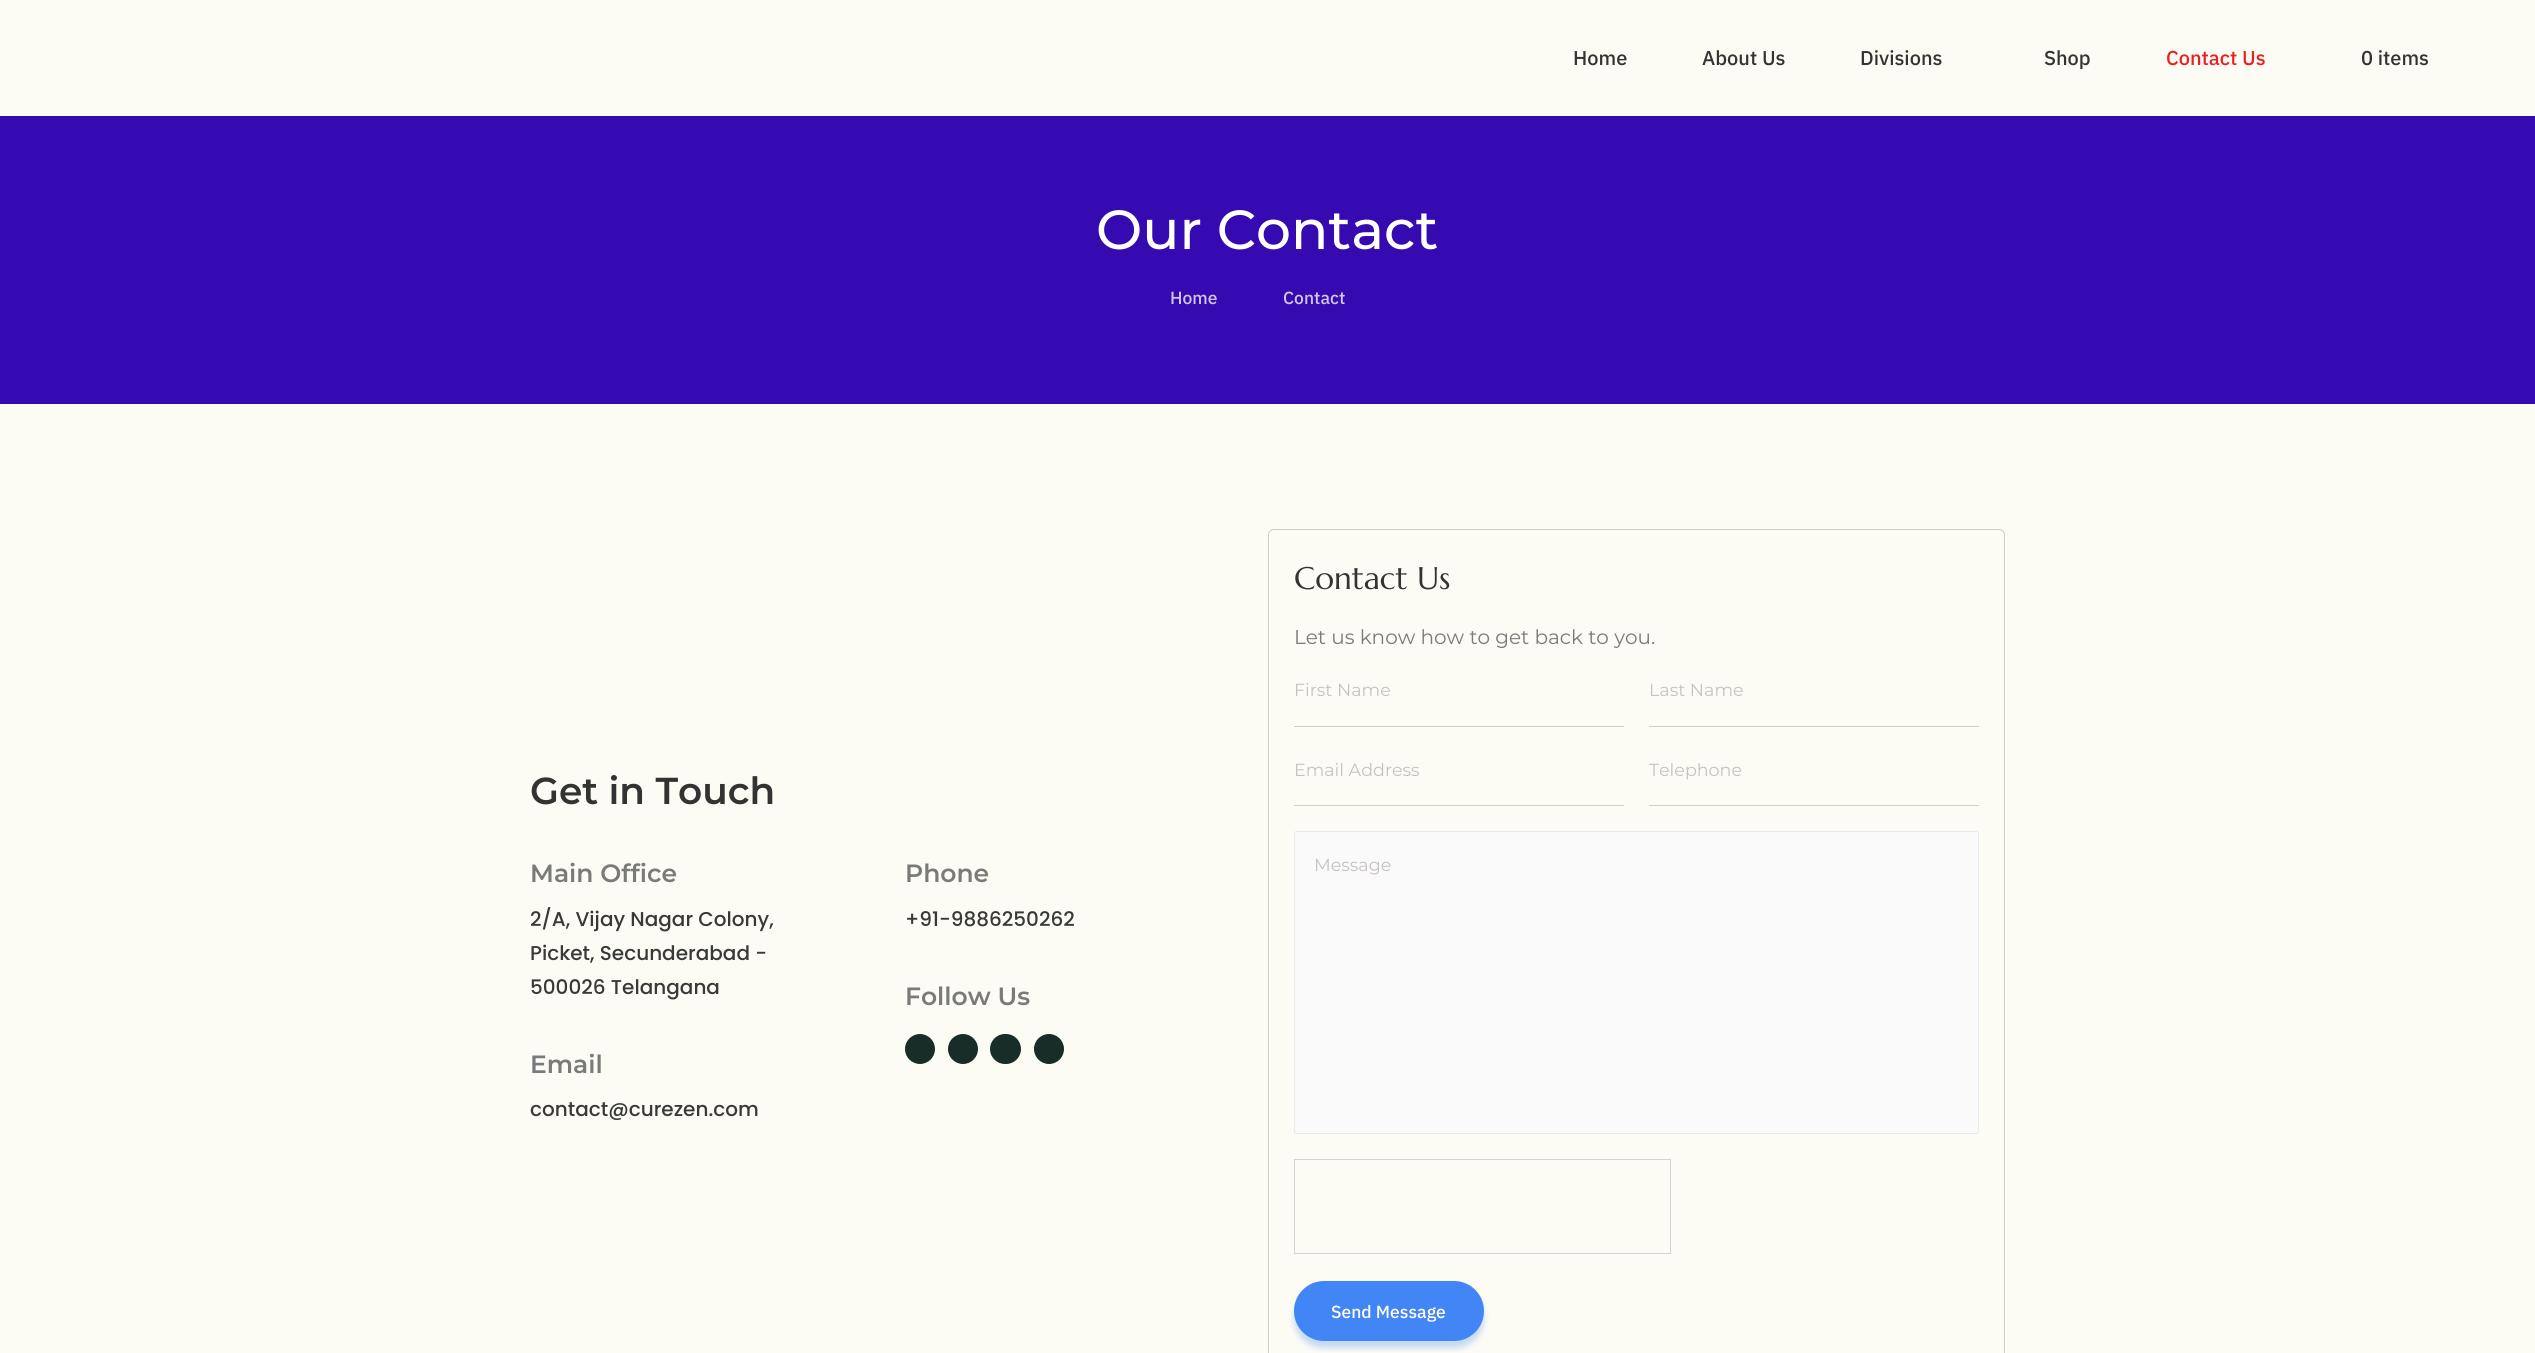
import math
import cairo

surface = cairo.ImageSurface(cairo.FORMAT_RGB24, 2535, 1353)
cr = cairo.Context(surface)
options = cairo.FontOptions()
options.set_hint_metrics(cairo.HINT_METRICS_OFF)
options.set_hint_style(cairo.HINT_STYLE_NONE)
cr.set_font_options(options)
cr.set_miter_limit(4)


def rgb(code):
    cr.set_source_rgb(*(v / 255 for v in bytes.fromhex(code[-6:])))


def rrect(x, y, w, h, r):
    cr.new_sub_path()
    for i, (u, v) in enumerate([(x + w - r, y + h - r), (x + r, y + h - r), (x + r, y + r), (x + w - r, y + r)]):
        cr.arc(u, v, r, i * math.pi / 2, (i + 1) * math.pi / 2)
    cr.close_path()


def soft_shadow(x, y, w, h, r, blur, alpha):
    cr.push_group_with_content(cairo.CONTENT_ALPHA)
    cr.set_operator(cairo.OPERATOR_SOURCE)
    for i in range(15, -16, -2):
        e = blur * i / 6
        if min(w, h) + 2 * e > 0:
            cr.set_source_rgba(0, 0, 0, alpha * math.erfc((i - 1) / 8.5) / 2)
            rrect(x - e, y - e, w + 2 * e, h + 2 * e, max(0, min(r + e + blur * .6, min(w, h) / 2 + e)))
            cr.fill()
    cr.mask(cr.pop_group())


rgb("#fcfcf4")
cr.paint()
rgb("#360ab1")
cr.rectangle(0, 116, 2535, 288)
cr.fill()
rgb("#182d27")
cr.arc(920, 1049, 15, 0, 2 * math.pi)
cr.fill()
cr.arc(963, 1049, 15, 0, 2 * math.pi)
cr.fill()
rrect(990, 1034, 31, 30, 15)
cr.fill()
cr.arc(1049, 1049, 15, 0, 2 * math.pi)
cr.fill()
rrect(1268.5, 529.5, 736, 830, 5.5)
rgb("#d0d0ca")
cr.set_line_width(1)
cr.stroke()
for x, y, w, h, color in [
    (1294, 726, 330, 1, "#d0d0ca"),
    (1649, 726, 330, 1, "#d0d0ca"),
    (1294, 805, 330, 1, "#d0d0ca"),
    (1649, 805, 330, 1, "#d0d0ca"),
]:
    rgb(color)
    cr.rectangle(x, y, w, h)
    cr.fill()
rgb("#fafafa")
rrect(1294.5, 831.5, 684, 302, 2)
cr.fill_preserve()
rgb("#eaeaea")
cr.stroke()
for x, y, w, h, color in [
    (1294, 1159, 1, 95, "#d3d3d3"),
    (1294, 1159, 377, 1, "#d3d3d3"),
    (1294, 1253, 377, 1, "#d3d3d3"),
    (1670, 1159, 1, 95, "#d3d3d3"),
]:
    rgb(color)
    cr.rectangle(x, y, w, h)
    cr.fill()
rgb("#4285f4")
soft_shadow(1294, 1288, 190, 60, 30, 3, 0.3)
rgb("#4285f4")
rrect(1294, 1281, 190, 60, 30)
cr.fill()
cr.select_font_face("IBM Plex Sans Medium")
cr.set_font_size(20)
rgb("#333333")
for x, y, s in [
    (1573, 65, "Home"),
    (1702, 65, "About Us"),
    (1860, 65, "Divisions"),
    (2044, 65, "Shop"),
]:
    cr.move_to(x, y)
    cr.show_text(s)
rgb("#ec1e22")
cr.move_to(2166, 65)
cr.show_text("Contact Us")
rgb("#333333")
cr.move_to(2361, 65)
cr.show_text("0 items")
cr.select_font_face("Montserrat Medium")
cr.set_font_size(55)
rgb("#ffffff")
cr.move_to(1096, 249)
cr.show_text("Our Contact")
cr.select_font_face("IBM Plex Sans Medium")
cr.set_font_size(17.5)
rgb("#d1c7ed")
cr.move_to(1170, 304)
cr.show_text("Home")
cr.move_to(1283, 304)
cr.show_text("Contact")
cr.select_font_face("Montserrat SemiBold")
cr.set_font_size(37.5)
rgb("#333333")
cr.move_to(530, 804)
cr.show_text("Get in Touch")
cr.set_font_size(25)
rgb("#7a7a7a")
cr.move_to(530, 882)
cr.show_text("Main Office")
cr.select_font_face("Poppins Medium")
cr.set_font_size(20)
rgb("#393939")
for x, y, s in [
    (530, 926, "2/A, Vijay Nagar Colony,"),
    (530, 960, "Picket, Secunderabad -"),
    (530, 994, "500026 Telangana"),
]:
    cr.move_to(x, y)
    cr.show_text(s)
cr.select_font_face("Montserrat SemiBold")
cr.set_font_size(25)
rgb("#7a7a7a")
cr.move_to(530, 1073)
cr.show_text("Email")
cr.select_font_face("Poppins Medium")
cr.set_font_size(20)
rgb("#393939")
cr.move_to(530, 1116)
cr.show_text("contact@curezen.com")
cr.select_font_face("Montserrat SemiBold")
cr.set_font_size(25)
rgb("#7a7a7a")
cr.move_to(905, 882)
cr.show_text("Phone")
cr.select_font_face("Poppins Medium")
cr.set_font_size(20)
rgb("#393939")
cr.move_to(905, 926)
cr.show_text("+91-9886250262")
cr.select_font_face("Montserrat SemiBold")
cr.set_font_size(25)
rgb("#7a7a7a")
cr.move_to(905, 1005)
cr.show_text("Follow Us")
cr.select_font_face("Marcellus")
cr.set_font_size(31.25)
rgb("#333333")
cr.move_to(1294, 589)
cr.show_text("Contact Us")
cr.select_font_face("Montserrat")
cr.set_font_size(20)
rgb("#7a7a7a")
cr.move_to(1294, 644)
cr.show_text("Let us know how to get back to you.")
cr.set_font_size(17.5)
rgb("#c9c1c1")
for x, y, s in [
    (1294, 696, "First Name"),
    (1649, 696, "Last Name"),
    (1294, 776, "Email Address"),
    (1649, 776, "Telephone"),
    (1314, 871, "Message"),
]:
    cr.move_to(x, y)
    cr.show_text(s)
cr.select_font_face("IBM Plex Sans Medium")
rgb("#ffffff")
cr.move_to(1331, 1318)
cr.show_text("Send Message")
surface.write_to_png("page.png")
